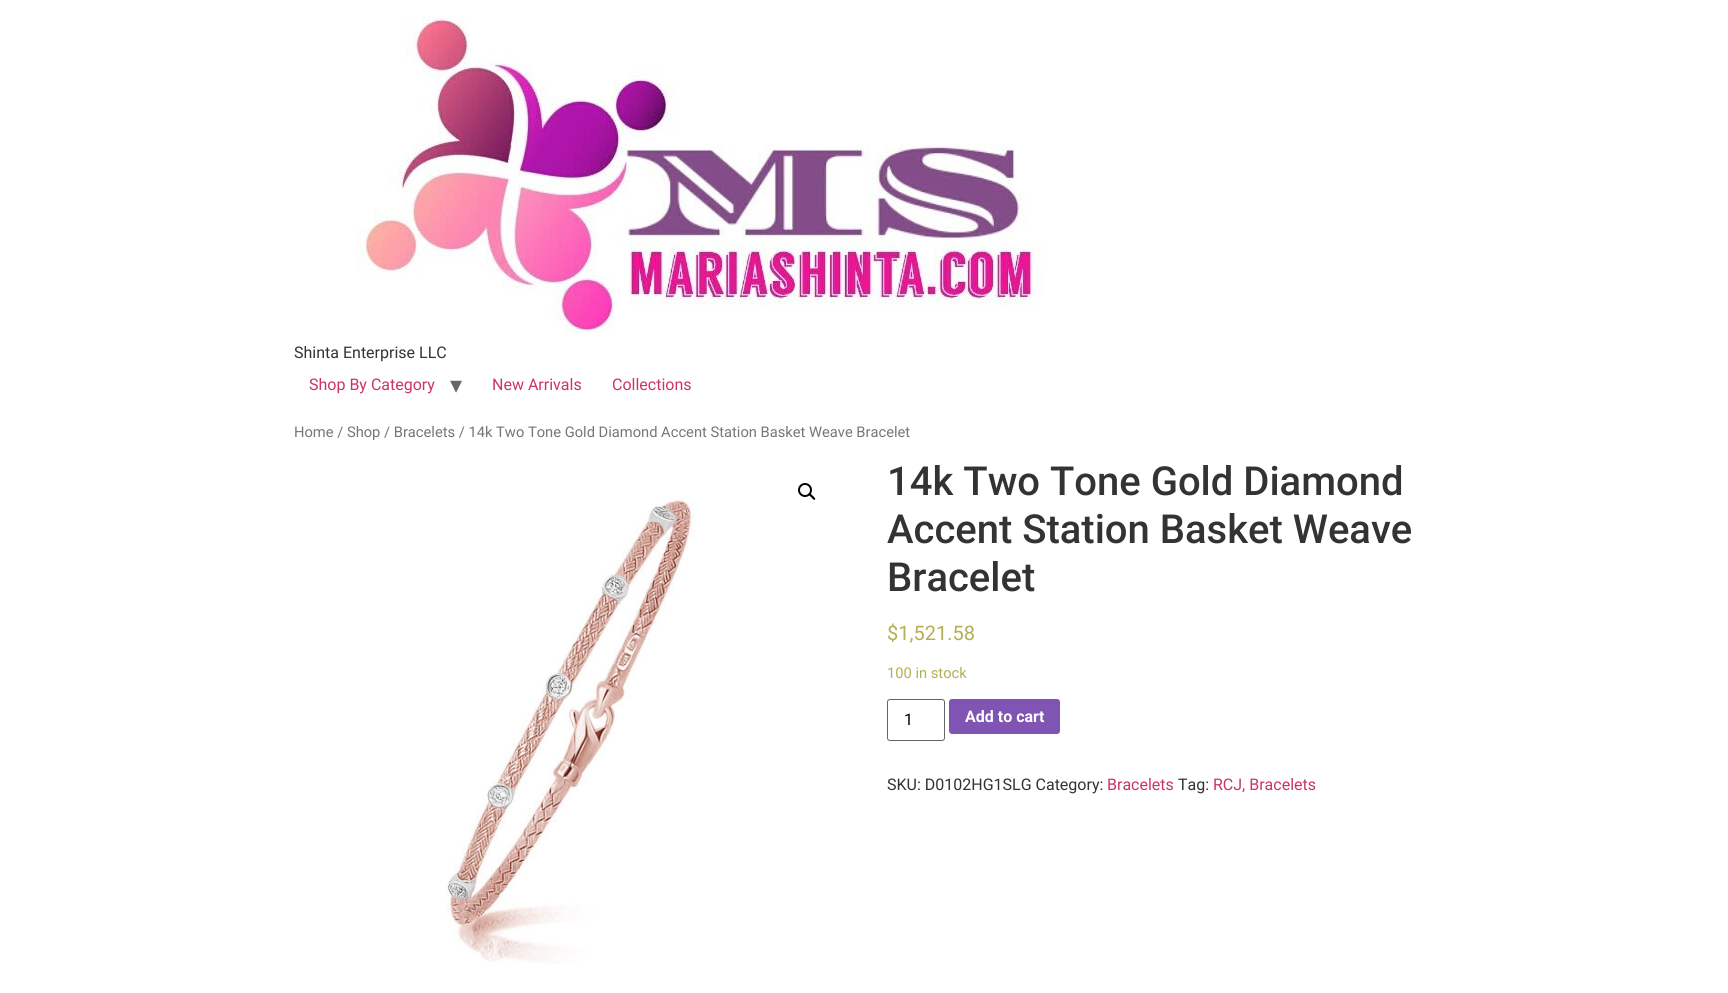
import math
import cairo

surface = cairo.ImageSurface(cairo.FORMAT_RGB24, 1728, 993)
cr = cairo.Context(surface)
options = cairo.FontOptions()
options.set_hint_metrics(cairo.HINT_METRICS_OFF)
options.set_hint_style(cairo.HINT_STYLE_NONE)
cr.set_font_options(options)
cr.set_miter_limit(4)


def rgb(code):
    cr.set_source_rgb(*(v / 255 for v in bytes.fromhex(code[-6:])))


def rrect(x, y, w, h, r):
    cr.new_sub_path()
    for i, (u, v) in enumerate([(x + w - r, y + h - r), (x + r, y + h - r), (x + r, y + r), (x + w - r, y + r)]):
        cr.arc(u, v, r, i * math.pi / 2, (i + 1) * math.pi / 2)
    cr.close_path()


def image(path, x, y, w, h):
    cr.save()
    cr.set_source_surface(cairo.ImageSurface.create_from_png(path), x, y)
    cr.rectangle(x, y, w, h)
    cr.fill()
    cr.restore()


rgb("#ffffff")
cr.paint()
image("img/1.png", 358, 16, 688, 317)
cr.arc(805, 490, 6, 0, 2 * math.pi)
rgb("#000000")
cr.stroke()
cr.new_path()
cr.move_to(809.5, 494)
cr.curve_to(810.5, 493, 812.5, 495.5, 813, 496)
cr.curve_to(813.5, 496.5, 816, 498.5, 815, 499.5)
cr.curve_to(814, 501, 812, 498, 811.5, 497.5)
cr.curve_to(811, 497, 808, 495, 809.5, 494)
cr.close_path()
cr.fill()
image("img/2.png", 447, 496, 248, 468)
rrect(887.5, 699.5, 57, 41, 2.5)
rgb("#666666")
cr.set_line_width(1)
cr.stroke()
rgb("#7f54b3")
rrect(949, 699, 111, 35, 3)
cr.fill()
cr.select_font_face("Roboto")
cr.set_font_size(16)
rgb("#333333")
cr.move_to(294, 358)
cr.show_text("Shinta Enterprise LLC")
rgb("#cc3366")
cr.move_to(309, 390)
cr.show_text("Shop By Category")
cr.select_font_face("DejaVu Sans")
cr.set_font_size(24)
rgb("#666666")
cr.move_to(450, 393)
cr.show_text("▾")
cr.select_font_face("Roboto")
cr.set_font_size(16)
rgb("#cc3366")
cr.move_to(492, 390)
cr.show_text("New Arrivals")
cr.move_to(612, 390)
cr.show_text("Collections")
cr.set_font_size(14.7)
rgb("#767676")
cr.move_to(294, 437)
cr.show_text("Home / Shop / Bracelets / 14k Two Tone Gold Diamond Accent Station Basket Weave Bracelet")
cr.select_font_face("Roboto Medium")
cr.set_font_size(40)
rgb("#333333")
for x, y, s in [
    (887, 495, "14k Two Tone Gold Diamond"),
    (887, 543, "Accent Station Basket Weave"),
    (887, 591, "Bracelet"),
]:
    cr.move_to(x, y)
    cr.show_text(s)
cr.select_font_face("Roboto")
cr.set_font_size(20)
rgb("#b3af54")
cr.move_to(887, 640)
cr.show_text("$1,521.58")
cr.set_font_size(14.7)
cr.move_to(887, 678)
cr.show_text("100 in stock")
cr.set_font_size(16)
rgb("#000000")
cr.move_to(904, 725)
cr.show_text("1")
cr.select_font_face("Roboto", cairo.FONT_SLANT_NORMAL, cairo.FONT_WEIGHT_BOLD)
rgb("#ffffff")
cr.move_to(965, 722)
cr.show_text("Add to cart")
cr.select_font_face("Roboto")
rgb("#333333")
cr.move_to(887, 790)
cr.show_text("SKU: D0102HG1SLG Category:")
rgb("#cc3366")
cr.move_to(1107, 790)
cr.show_text("Bracelets")
rgb("#333333")
cr.move_to(1178, 790)
cr.show_text("Tag:")
rgb("#cc3366")
cr.move_to(1213, 790)
cr.show_text("RCJ, Bracelets")
surface.write_to_png("page.png")
